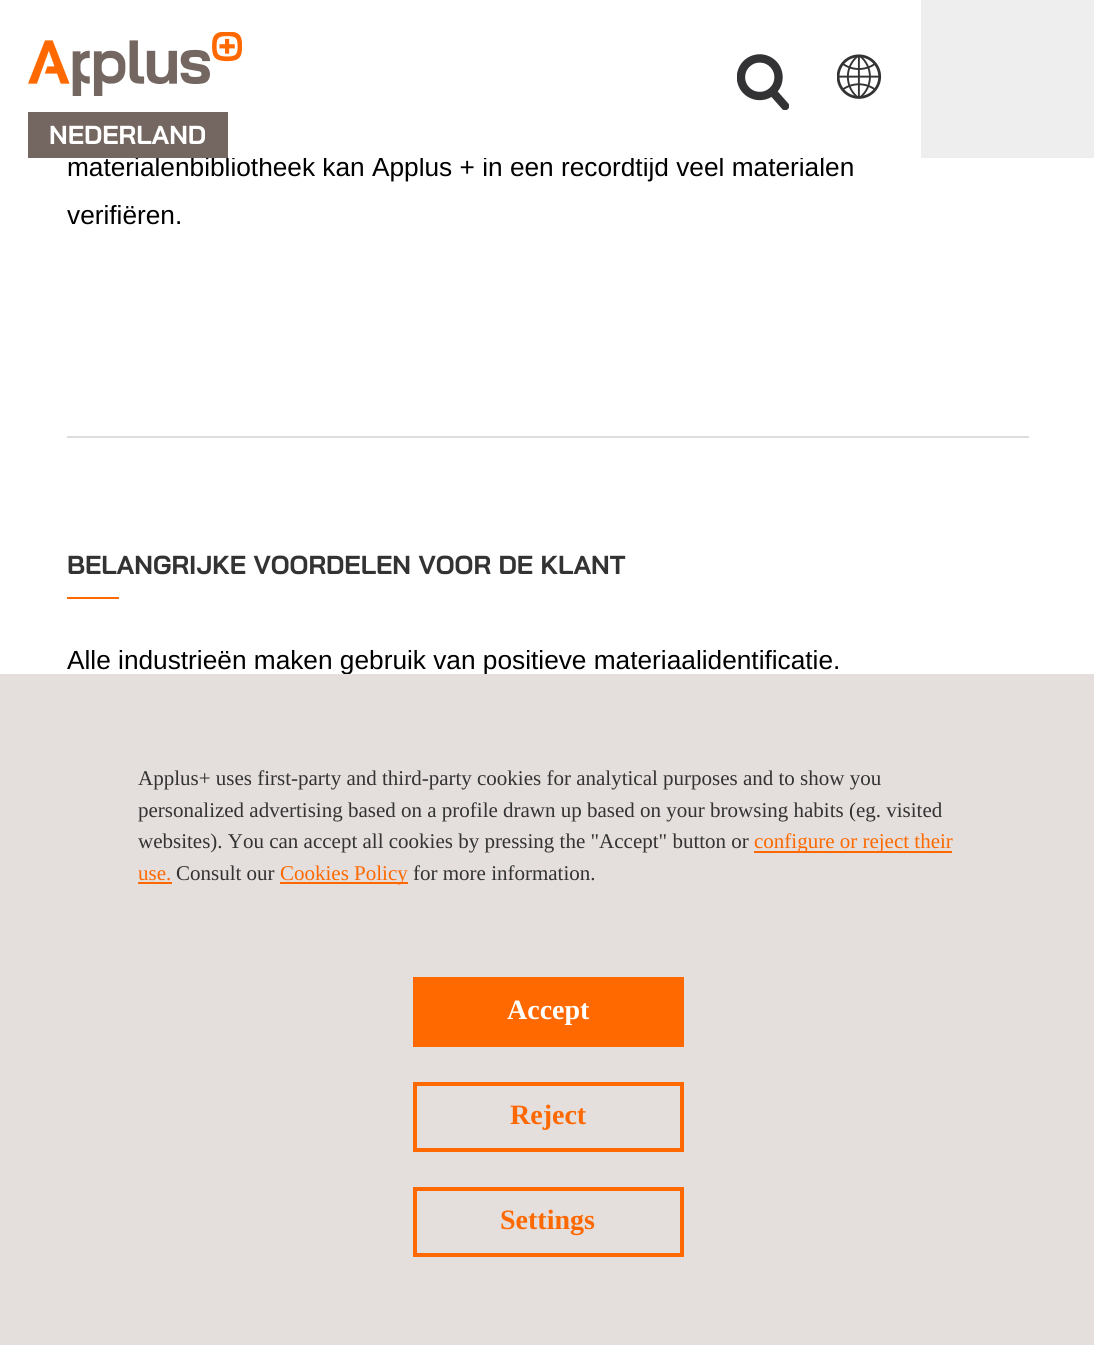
import math
import cairo

surface = cairo.ImageSurface(cairo.FORMAT_RGB24, 1094, 1345)
cr = cairo.Context(surface)
options = cairo.FontOptions()
options.set_hint_metrics(cairo.HINT_METRICS_OFF)
options.set_hint_style(cairo.HINT_STYLE_NONE)
cr.set_font_options(options)
cr.set_miter_limit(4)


def rgb(code):
    cr.set_source_rgb(*(v / 255 for v in bytes.fromhex(code[-6:])))


def image(path, x, y, w, h):
    cr.save()
    cr.set_source_surface(cairo.ImageSurface.create_from_png(path), x, y)
    cr.rectangle(x, y, w, h)
    cr.fill()
    cr.restore()


rgb("#ffffff")
cr.paint()
image("img/1.png", 737, 54, 52, 56)
image("img/2.png", 837, 54, 45, 45)
rgb("#eeeeee")
cr.rectangle(921, 0, 173, 158)
cr.fill()
image("img/3.png", 28, 32, 214, 64)
rgb("#dddddd")
cr.rectangle(67, 436, 962, 2)
cr.fill()
rgb("#ff6900")
cr.rectangle(67, 597, 52, 2)
cr.fill()
cr.select_font_face("Liberation Sans")
cr.set_font_size(26.25)
rgb("#000000")
cr.move_to(67, 176)
cr.show_text("materialenbibliotheek kan Applus + in een recordtijd veel materialen")
rgb("#ffffff")
cr.rectangle(135, 157, 688, 1)
cr.fill()
rgb("#746660")
cr.rectangle(28, 112, 200, 46)
cr.fill()
cr.select_font_face("Bai Jamjuree", cairo.FONT_SLANT_NORMAL, cairo.FONT_WEIGHT_BOLD)
cr.set_font_size(26)
rgb("#ffffff")
cr.move_to(49, 144)
cr.show_text("NEDERLAND")
cr.select_font_face("Liberation Sans")
cr.set_font_size(26.25)
rgb("#000000")
cr.move_to(67, 224)
cr.show_text("verifiëren.")
cr.select_font_face("Bai Jamjuree", cairo.FONT_SLANT_NORMAL, cairo.FONT_WEIGHT_BOLD)
cr.set_font_size(26)
rgb("#333333")
cr.move_to(67, 574)
cr.show_text("BELANGRIJKE VOORDELEN VOOR DE KLANT")
cr.select_font_face("Liberation Sans")
cr.set_font_size(26.25)
rgb("#000000")
cr.move_to(67, 669)
cr.show_text("Alle industrieën maken gebruik van positieve materiaalidentificatie.")
rgb("#e4dedc")
cr.rectangle(0, 674, 1094, 671)
cr.fill()
cr.select_font_face("Liberation Serif")
cr.set_font_size(21)
rgb("#333333")
for x, y, s in [
    (138, 785, "Applus+ uses first-party and third-party cookies for analytical purposes and to show you"),
    (138, 817, "personalized advertising based on a profile drawn up based on your browsing habits (eg. visited"),
    (138, 848, "websites). You can accept all cookies by pressing the \"Accept\" button or"),
]:
    cr.move_to(x, y)
    cr.show_text(s)
rgb("#fd6900")
cr.rectangle(754, 851, 198, 2)
cr.fill()
cr.move_to(754, 848)
cr.show_text("configure or reject their")
cr.move_to(138, 880)
cr.show_text("use.")
cr.rectangle(138, 882, 34, 2)
cr.fill()
rgb("#333333")
cr.move_to(176, 880)
cr.show_text("Consult our")
rgb("#fd6900")
cr.rectangle(280, 882, 128, 2)
cr.fill()
cr.move_to(280, 880)
cr.show_text("Cookies Policy")
rgb("#333333")
cr.move_to(413, 880)
cr.show_text("for more information.")
rgb("#ff6900")
cr.rectangle(413, 977, 271, 70)
cr.fill()
cr.select_font_face("Liberation Serif", cairo.FONT_SLANT_NORMAL, cairo.FONT_WEIGHT_BOLD)
cr.set_font_size(28)
rgb("#ffffff")
cr.move_to(507, 1019)
cr.show_text("Accept")
cr.rectangle(415, 1084, 267, 66)
rgb("#ff6900")
cr.set_line_width(4)
cr.stroke()
rgb("#fd6900")
cr.move_to(510, 1124)
cr.show_text("Reject")
cr.rectangle(415, 1189, 267, 66)
rgb("#ff6900")
cr.stroke()
rgb("#fd6900")
cr.move_to(500, 1229)
cr.show_text("Settings")
surface.write_to_png("page.png")
